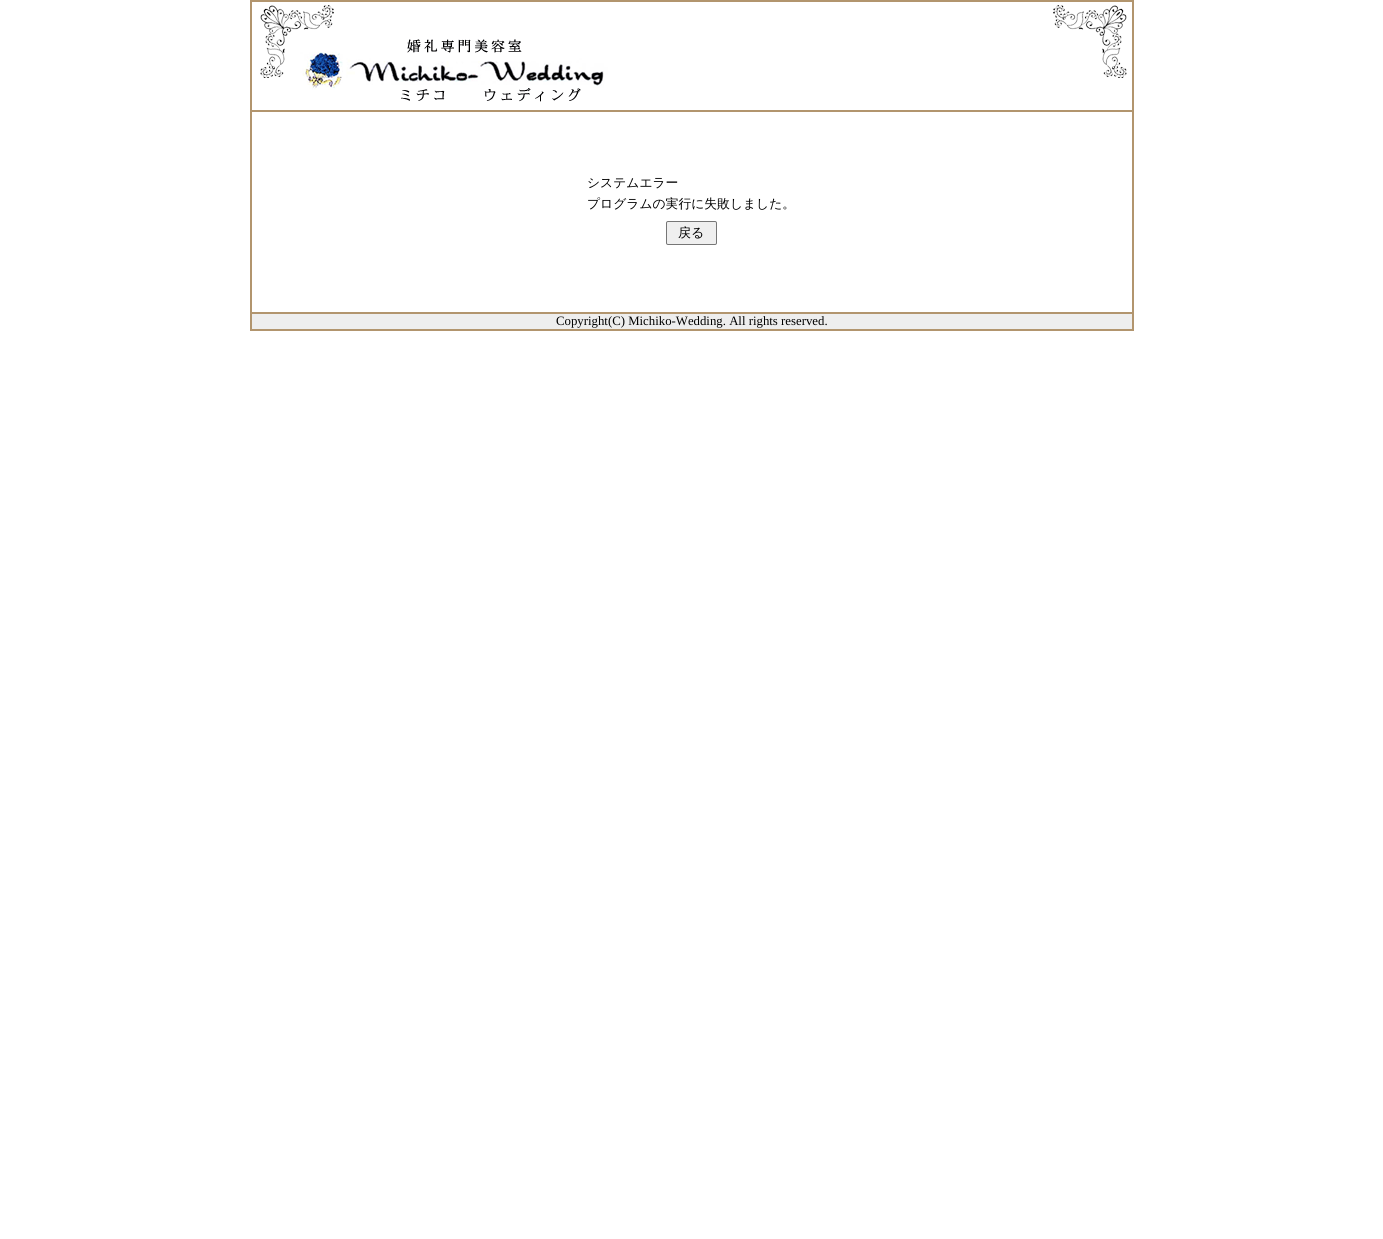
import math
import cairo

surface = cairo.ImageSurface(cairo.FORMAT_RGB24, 1383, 1239)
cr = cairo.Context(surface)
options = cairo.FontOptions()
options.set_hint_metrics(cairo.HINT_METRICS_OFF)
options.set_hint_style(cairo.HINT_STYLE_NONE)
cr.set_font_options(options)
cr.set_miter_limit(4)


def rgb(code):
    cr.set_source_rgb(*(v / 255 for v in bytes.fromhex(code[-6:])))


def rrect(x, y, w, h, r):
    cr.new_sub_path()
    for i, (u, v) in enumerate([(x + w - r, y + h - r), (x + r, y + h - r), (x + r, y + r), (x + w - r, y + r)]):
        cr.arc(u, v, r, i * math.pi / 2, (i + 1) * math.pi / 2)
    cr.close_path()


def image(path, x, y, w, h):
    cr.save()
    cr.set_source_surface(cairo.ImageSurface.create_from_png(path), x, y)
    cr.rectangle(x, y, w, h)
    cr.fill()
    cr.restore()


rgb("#ffffff")
cr.paint()
rgb("#b2956e")
cr.rectangle(250, 0, 884, 331)
cr.fill()
rgb("#ffffff")
cr.rectangle(252, 2, 880, 108)
cr.fill()
image("img/1.png", 260, 5, 867, 97)
cr.rectangle(252, 112, 880, 200)
cr.fill()
rgb("#efefef")
rrect(666.5, 221.5, 50, 23, 1.5)
cr.fill_preserve()
rgb("#767676")
cr.set_line_width(1)
cr.stroke()
rgb("#eeeeee")
cr.rectangle(252, 314, 880, 15)
cr.fill()
cr.select_font_face("WenQuanYi Zen Hei Medium")
cr.set_font_size(12.8)
rgb("#000000")
cr.move_to(587, 187)
cr.show_text("システムエラー")
cr.move_to(587, 208)
cr.show_text("プログラムの実行に失敗しました。")
cr.set_font_size(13)
cr.move_to(678, 237)
cr.show_text("戻る")
cr.select_font_face("Liberation Serif")
cr.set_font_size(12.8)
cr.move_to(556, 325)
cr.show_text("Copyright(C) Michiko-Wedding. All rights reserved.")
surface.write_to_png("page.png")
